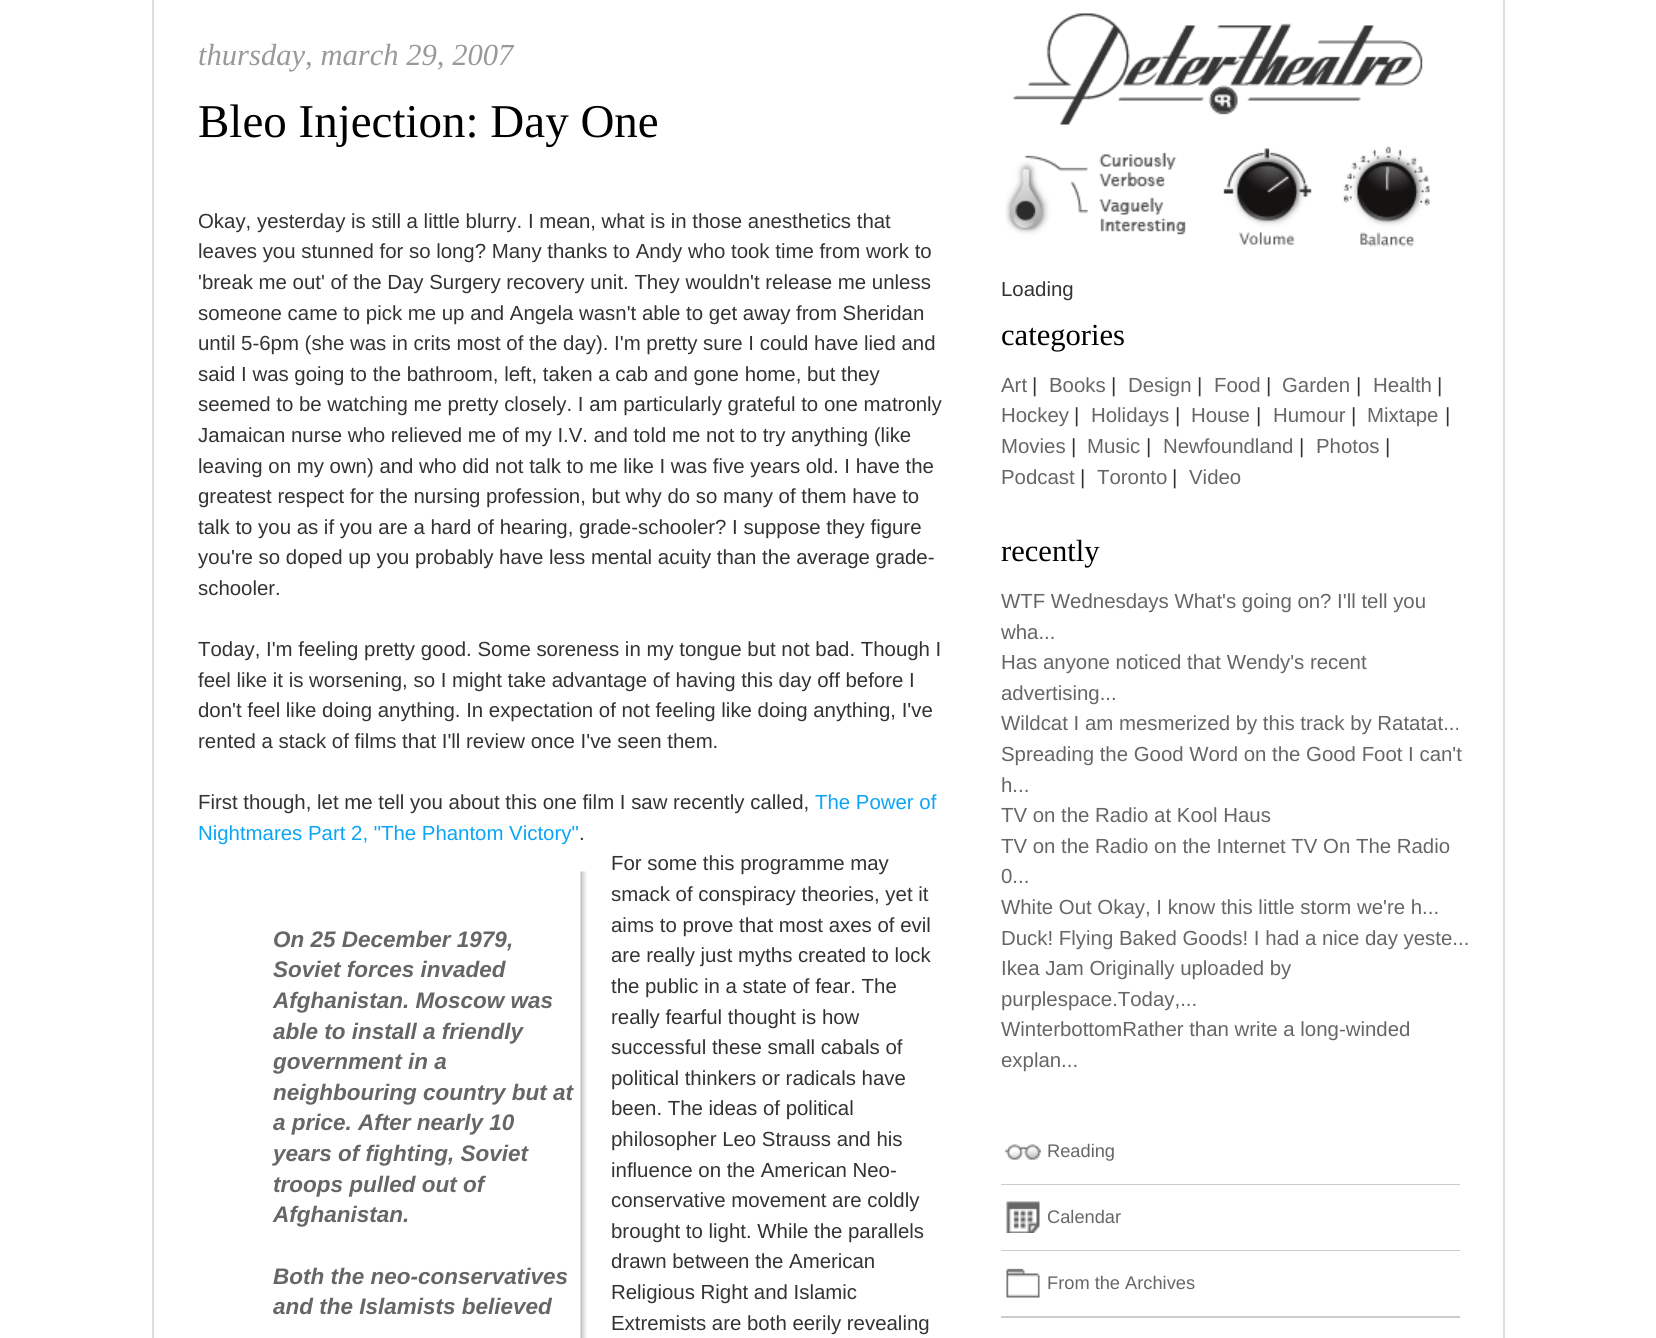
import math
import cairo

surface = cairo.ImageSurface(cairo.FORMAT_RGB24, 1656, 1338)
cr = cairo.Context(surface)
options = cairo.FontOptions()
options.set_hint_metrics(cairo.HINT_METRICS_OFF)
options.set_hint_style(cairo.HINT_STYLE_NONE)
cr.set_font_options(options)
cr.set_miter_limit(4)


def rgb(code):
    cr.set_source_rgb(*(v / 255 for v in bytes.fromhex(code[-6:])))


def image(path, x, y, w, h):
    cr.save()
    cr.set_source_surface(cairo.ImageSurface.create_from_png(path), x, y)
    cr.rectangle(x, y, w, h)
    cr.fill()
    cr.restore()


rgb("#ffffff")
cr.paint()
rgb("#dedede")
cr.rectangle(1503, 0, 2, 1338)
cr.fill()
cr.rectangle(152, 0, 2, 1338)
cr.fill()
image("img/1.png", 580, 871, 7, 467)
image("img/2.png", 1005, 13, 425, 234)
rgb("#cccccc")
cr.rectangle(1001, 1184, 459, 1)
cr.fill()
image("img/3.png", 1005, 1144, 36, 16)
cr.rectangle(1001, 1250, 459, 1)
cr.fill()
image("img/4.png", 1006, 1201, 34, 32)
cr.rectangle(1001, 1316, 459, 2)
cr.fill()
image("img/5.png", 1006, 1268, 34, 30)
cr.select_font_face("Liberation Serif", cairo.FONT_SLANT_ITALIC)
cr.set_font_size(30.6)
rgb("#999999")
cr.move_to(198, 65)
cr.show_text("thursday, march 29, 2007")
cr.select_font_face("Liberation Serif")
cr.set_font_size(47)
rgb("#000000")
cr.move_to(198, 137)
cr.show_text("Bleo Injection: Day One")
cr.select_font_face("Liberation Sans")
cr.set_font_size(20.4)
rgb("#333333")
for x, y, s in [
    (198, 228, "Okay, yesterday is still a little blurry. I mean, what is in those anesthetics that"),
    (198, 258, "leaves you stunned for so long? Many thanks to Andy who took time from work to"),
    (198, 289, "'break me out' of the Day Surgery recovery unit. They wouldn't release me unless"),
    (198, 320, "someone came to pick me up and Angela wasn't able to get away from Sheridan"),
    (198, 350, "until 5-6pm (she was in crits most of the day). I'm pretty sure I could have lied and"),
    (198, 381, "said I was going to the bathroom, left, taken a cab and gone home, but they"),
    (198, 411, "seemed to be watching me pretty closely. I am particularly grateful to one matronly"),
    (198, 442, "Jamaican nurse who relieved me of my I.V. and told me not to try anything (like"),
    (198, 473, "leaving on my own) and who did not talk to me like I was five years old. I have the"),
    (198, 503, "greatest respect for the nursing profession, but why do so many of them have to"),
    (198, 534, "talk to you as if you are a hard of hearing, grade-schooler? I suppose they figure"),
    (198, 564, "you're so doped up you probably have less mental acuity than the average grade-"),
    (198, 595, "schooler."),
    (198, 656, "Today, I'm feeling pretty good. Some soreness in my tongue but not bad. Though I"),
    (198, 687, "feel like it is worsening, so I might take advantage of having this day off before I"),
    (198, 717, "don't feel like doing anything. In expectation of not feeling like doing anything, I've"),
    (198, 748, "rented a stack of films that I'll review once I've seen them."),
    (198, 809, "First though, let me tell you about this one film I saw recently called,"),
]:
    cr.move_to(x, y)
    cr.show_text(s)
rgb("#0ca5f5")
cr.move_to(815, 809)
cr.show_text("The Power of")
cr.move_to(198, 840)
cr.show_text("Nightmares Part 2, \"The Phantom Victory\"")
rgb("#333333")
for x, y, s in [
    (579, 840, "."),
    (611, 870, "For some this programme may"),
    (611, 901, "smack of conspiracy theories, yet it"),
    (611, 932, "aims to prove that most axes of evil"),
]:
    cr.move_to(x, y)
    cr.show_text(s)
cr.select_font_face("Liberation Sans", cairo.FONT_SLANT_ITALIC, cairo.FONT_WEIGHT_BOLD)
cr.set_font_size(22.5)
rgb("#666666")
for x, y, s in [
    (273, 947, "On 25 December 1979,"),
    (273, 977, "Soviet forces invaded"),
    (273, 1008, "Afghanistan. Moscow was"),
    (273, 1039, "able to install a friendly"),
    (273, 1069, "government in a"),
    (273, 1100, "neighbouring country but at"),
    (273, 1130, "a price. After nearly 10"),
    (273, 1161, "years of fighting, Soviet"),
    (273, 1192, "troops pulled out of"),
    (273, 1222, "Afghanistan."),
    (273, 1284, "Both the neo-conservatives"),
    (273, 1314, "and the Islamists believed"),
]:
    cr.move_to(x, y)
    cr.show_text(s)
cr.select_font_face("Liberation Sans")
cr.set_font_size(20.4)
rgb("#333333")
for x, y, s in [
    (611, 962, "are really just myths created to lock"),
    (611, 993, "the public in a state of fear. The"),
    (611, 1024, "really fearful thought is how"),
    (611, 1054, "successful these small cabals of"),
    (611, 1085, "political thinkers or radicals have"),
    (611, 1115, "been. The ideas of political"),
    (611, 1146, "philosopher Leo Strauss and his"),
    (611, 1177, "influence on the American Neo-"),
    (611, 1207, "conservative movement are coldly"),
    (611, 1238, "brought to light. While the parallels"),
    (611, 1268, "drawn between the American"),
    (611, 1299, "Religious Right and Islamic"),
    (611, 1330, "Extremists are both eerily revealing"),
    (1001, 296, "Loading"),
]:
    cr.move_to(x, y)
    cr.show_text(s)
cr.select_font_face("Liberation Serif")
cr.set_font_size(30.6)
rgb("#000000")
cr.move_to(1001, 345)
cr.show_text("categories")
cr.select_font_face("Liberation Sans")
cr.set_font_size(20.4)
rgb("#666666")
cr.move_to(1001, 392)
cr.show_text("Art")
rgb("#333333")
cr.move_to(1032, 392)
cr.show_text("|")
rgb("#666666")
cr.move_to(1049, 392)
cr.show_text("Books")
rgb("#333333")
cr.move_to(1111, 392)
cr.show_text("|")
rgb("#666666")
cr.move_to(1128, 392)
cr.show_text("Design")
rgb("#333333")
cr.move_to(1197, 392)
cr.show_text("|")
rgb("#666666")
cr.move_to(1214, 392)
cr.show_text("Food")
rgb("#333333")
cr.move_to(1266, 392)
cr.show_text("|")
rgb("#666666")
cr.move_to(1282, 392)
cr.show_text("Garden")
rgb("#333333")
cr.move_to(1356, 392)
cr.show_text("|")
rgb("#666666")
cr.move_to(1373, 392)
cr.show_text("Health")
rgb("#333333")
cr.move_to(1437, 392)
cr.show_text("|")
rgb("#666666")
cr.move_to(1001, 422)
cr.show_text("Hockey")
rgb("#333333")
cr.move_to(1074, 422)
cr.show_text("|")
rgb("#666666")
cr.move_to(1091, 422)
cr.show_text("Holidays")
rgb("#333333")
cr.move_to(1175, 422)
cr.show_text("|")
rgb("#666666")
cr.move_to(1191, 422)
cr.show_text("House")
rgb("#333333")
cr.move_to(1256, 422)
cr.show_text("|")
rgb("#666666")
cr.move_to(1273, 422)
cr.show_text("Humour")
rgb("#333333")
cr.move_to(1351, 422)
cr.show_text("|")
rgb("#666666")
cr.move_to(1367, 422)
cr.show_text("Mixtape")
rgb("#333333")
cr.move_to(1445, 422)
cr.show_text("|")
rgb("#666666")
cr.move_to(1001, 453)
cr.show_text("Movies")
rgb("#333333")
cr.move_to(1071, 453)
cr.show_text("|")
rgb("#666666")
cr.move_to(1087, 453)
cr.show_text("Music")
rgb("#333333")
cr.move_to(1146, 453)
cr.show_text("|")
rgb("#666666")
cr.move_to(1163, 453)
cr.show_text("Newfoundland")
rgb("#333333")
cr.move_to(1299, 453)
cr.show_text("|")
rgb("#666666")
cr.move_to(1316, 453)
cr.show_text("Photos")
rgb("#333333")
cr.move_to(1385, 453)
cr.show_text("|")
rgb("#666666")
cr.move_to(1001, 484)
cr.show_text("Podcast")
rgb("#333333")
cr.move_to(1080, 484)
cr.show_text("|")
rgb("#666666")
cr.move_to(1097, 484)
cr.show_text("Toronto")
rgb("#333333")
cr.move_to(1172, 484)
cr.show_text("|")
rgb("#666666")
cr.move_to(1189, 484)
cr.show_text("Video")
cr.select_font_face("Liberation Serif")
cr.set_font_size(30.6)
rgb("#000000")
cr.move_to(1001, 561)
cr.show_text("recently")
cr.select_font_face("Liberation Sans")
cr.set_font_size(20.4)
rgb("#666666")
for x, y, s in [
    (1001, 608, "WTF Wednesdays What's going on? I'll tell you"),
    (1001, 639, "wha..."),
    (1001, 669, "Has anyone noticed that Wendy's recent"),
    (1001, 700, "advertising..."),
    (1001, 730, "Wildcat I am mesmerized by this track by Ratatat..."),
    (1001, 761, "Spreading the Good Word on the Good Foot I can't"),
    (1001, 792, "h..."),
    (1001, 822, "TV on the Radio at Kool Haus"),
    (1001, 853, "TV on the Radio on the Internet TV On The Radio"),
    (1001, 883, "0..."),
    (1001, 914, "White Out Okay, I know this little storm we're h..."),
    (1001, 945, "Duck! Flying Baked Goods! I had a nice day yeste..."),
    (1001, 975, "Ikea Jam Originally uploaded by"),
    (1001, 1006, "purplespace.Today,..."),
    (1001, 1036, "WinterbottomRather than write a long-winded"),
    (1001, 1067, "explan..."),
]:
    cr.move_to(x, y)
    cr.show_text(s)
cr.set_font_size(18.25)
for x, y, s in [
    (1047, 1157, "Reading"),
    (1047, 1223, "Calendar"),
    (1047, 1289, "From the Archives"),
]:
    cr.move_to(x, y)
    cr.show_text(s)
surface.write_to_png("page.png")
